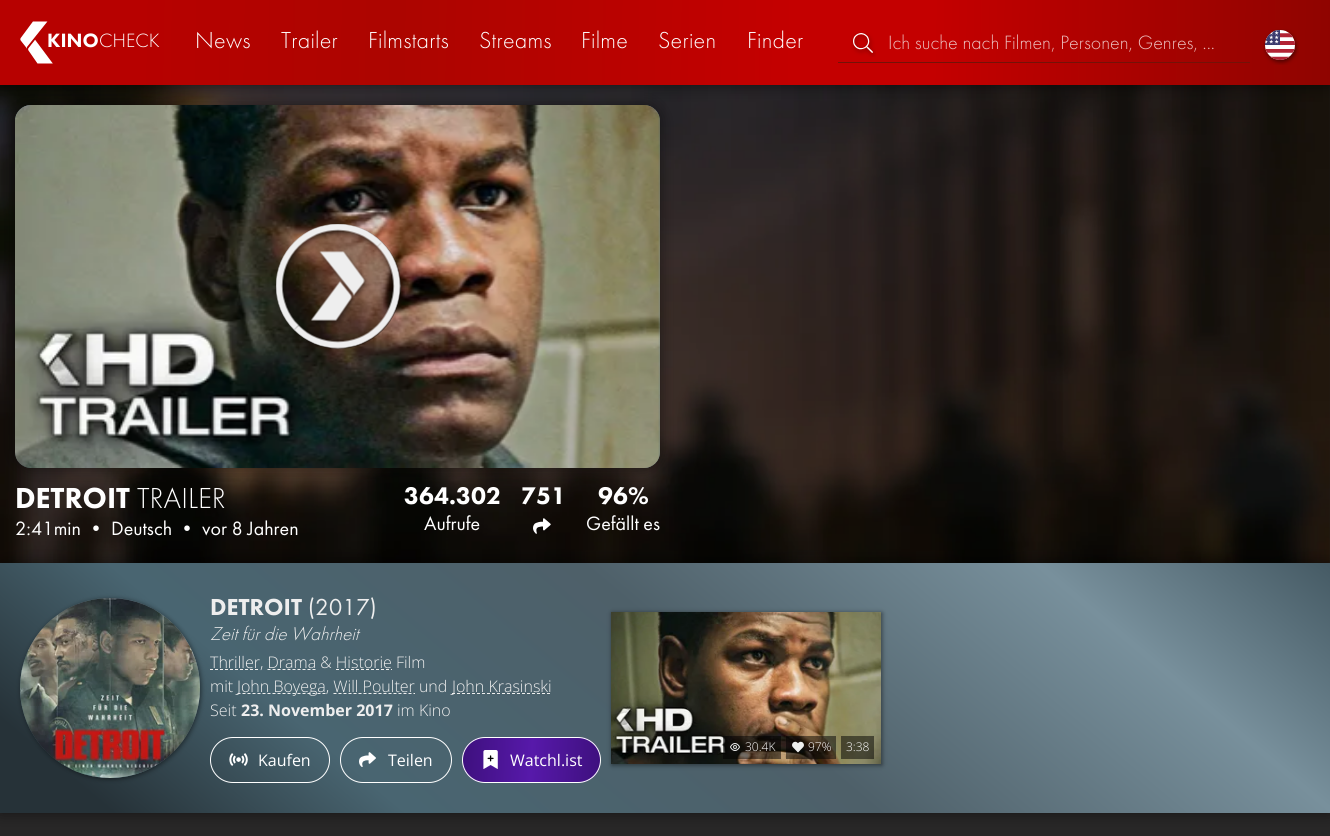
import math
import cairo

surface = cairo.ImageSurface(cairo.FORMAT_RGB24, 1330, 836)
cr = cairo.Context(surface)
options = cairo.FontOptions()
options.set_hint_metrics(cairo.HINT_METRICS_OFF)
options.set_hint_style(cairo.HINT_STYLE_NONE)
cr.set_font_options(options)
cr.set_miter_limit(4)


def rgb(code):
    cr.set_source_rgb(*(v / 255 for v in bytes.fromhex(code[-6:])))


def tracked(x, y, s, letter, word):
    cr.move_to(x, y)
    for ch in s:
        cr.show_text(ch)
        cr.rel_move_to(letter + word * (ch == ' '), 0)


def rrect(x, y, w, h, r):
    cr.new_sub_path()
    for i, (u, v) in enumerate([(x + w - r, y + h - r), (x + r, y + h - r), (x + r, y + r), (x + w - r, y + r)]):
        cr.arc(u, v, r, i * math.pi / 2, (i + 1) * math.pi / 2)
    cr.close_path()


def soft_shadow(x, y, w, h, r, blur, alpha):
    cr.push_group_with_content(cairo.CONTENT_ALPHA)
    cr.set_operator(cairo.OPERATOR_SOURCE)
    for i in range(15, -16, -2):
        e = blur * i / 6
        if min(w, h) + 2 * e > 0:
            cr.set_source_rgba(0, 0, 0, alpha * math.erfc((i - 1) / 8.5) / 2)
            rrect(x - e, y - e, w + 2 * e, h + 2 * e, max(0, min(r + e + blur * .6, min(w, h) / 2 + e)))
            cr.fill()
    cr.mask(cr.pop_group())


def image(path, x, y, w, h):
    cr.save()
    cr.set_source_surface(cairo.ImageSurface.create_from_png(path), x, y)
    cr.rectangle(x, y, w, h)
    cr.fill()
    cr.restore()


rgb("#282727")
cr.paint()
image("img/4.png", 0, 85, 1330, 478)
rgb("#000000")
soft_shadow(15, 105, 645, 363, 16, 7.5, 0.5)
gradient = cairo.LinearGradient(115, 552, 560, 21)
gradient.add_color_stop_rgba(0.07, 0.149, 0.196, 0.22, 1)
gradient.add_color_stop_rgba(0.25, 0.286, 0.396, 0.443, 1)
gradient.add_color_stop_rgba(0.54, 0.306, 0.376, 0.412, 1)
gradient.add_color_stop_rgba(0.82, 0.471, 0.565, 0.612, 1)
gradient.add_color_stop_rgba(1, 0.271, 0.353, 0.392, 1)
cr.set_source(gradient)
rrect(15, 105, 645, 363, 16)
cr.fill()
image("img/5.png", 15, 105, 645, 363)
rgb("#000000")
soft_shadow(0, 0, 1330, 85, 0, 7.5, 0.5)
gradient = cairo.LinearGradient(-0.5, 31, 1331, 54)
gradient.add_color_stop_rgba(0.1, 0.718, 0.004, 0, 1)
gradient.add_color_stop_rgba(0.3, 0.675, 0.02, 0, 1)
gradient.add_color_stop_rgba(0.6, 0.769, 0, 0, 1)
gradient.add_color_stop_rgba(0.7, 0.769, 0, 0, 1)
gradient.add_color_stop_rgba(1, 0.561, 0.016, 0, 1)
cr.set_source(gradient)
cr.rectangle(0, 0, 1330, 85)
cr.fill()
image("img/2.png", 851, 32, 25, 25)
rgb("#731208")
cr.rectangle(838, 62, 412, 1)
cr.fill()
image("img/3.png", 1263, 29, 36, 36)
cr.set_source_rgba(0, 0, 0, 0.3)
cr.arc(338.5, 286.5, 62.5, 0, 2 * math.pi)
cr.fill()
image("img/6.png", 276, 224, 125, 125)
image("img/7.png", 533, 518, 18, 16)
rgb("#000000")
soft_shadow(0, 563, 1330, 250, 0, 7.5, 0.5)
gradient = cairo.LinearGradient(329, 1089, 1001, 287)
gradient.add_color_stop_rgba(0.07, 0.149, 0.196, 0.22, 1)
gradient.add_color_stop_rgba(0.25, 0.286, 0.396, 0.443, 1)
gradient.add_color_stop_rgba(0.54, 0.306, 0.376, 0.412, 1)
gradient.add_color_stop_rgba(0.82, 0.471, 0.565, 0.612, 1)
gradient.add_color_stop_rgba(1, 0.271, 0.353, 0.392, 1)
cr.set_source(gradient)
cr.rectangle(0, 563, 1330, 250)
cr.fill()
rgb("#000000")
soft_shadow(21, 599, 180, 180, 90, 2.5, 0.5)
gradient = cairo.LinearGradient(28, 785, 192, 591)
gradient.add_color_stop_rgba(0.07, 0.149, 0.196, 0.22, 1)
gradient.add_color_stop_rgba(0.25, 0.286, 0.396, 0.443, 1)
gradient.add_color_stop_rgba(0.54, 0.306, 0.376, 0.412, 1)
gradient.add_color_stop_rgba(0.82, 0.471, 0.565, 0.612, 1)
gradient.add_color_stop_rgba(1, 0.271, 0.353, 0.392, 1)
cr.set_source(gradient)
cr.arc(110, 688, 90, 0, 2 * math.pi)
cr.fill()
image("img/8.png", 20, 598, 180, 180)
cr.new_path()
cr.move_to(210, 669.5)
cr.line_to(260, 669.5)
rgb("#eeeeee")
cr.set_line_width(1)
cr.set_dash([3, 2])
cr.stroke()
cr.new_path()
cr.move_to(267.5, 669.5)
cr.line_to(316, 669.5)
cr.stroke()
cr.new_path()
cr.move_to(336, 669.5)
cr.line_to(392, 669.5)
cr.stroke()
cr.new_path()
cr.move_to(237.5, 693.5)
cr.line_to(326, 693.5)
cr.stroke()
cr.new_path()
cr.move_to(452, 693.5)
cr.line_to(551.5, 693.5)
cr.stroke()
cr.new_path()
cr.move_to(333.5, 693.5)
cr.line_to(415, 693.5)
cr.stroke()
rrect(210.5, 737.5, 119, 45, 22.5)
rgb("#ffffff")
cr.set_dash([])
cr.stroke()
image("img/9.png", 229, 753, 19, 13)
rrect(340.5, 737.5, 111, 45, 22.5)
cr.stroke()
image("img/10.png", 359, 752, 17, 15)
cr.save()
rrect(462, 737, 139, 46, 23)
cr.clip()
gradient = cairo.LinearGradient(462, 756, 601, 764)
gradient.add_color_stop_rgba(0, 0.243, 0.063, 0.494, 1)
gradient.add_color_stop_rgba(0.5, 0.341, 0.098, 0.667, 1)
gradient.add_color_stop_rgba(1, 0.243, 0.063, 0.494, 1)
cr.set_source(gradient)
cr.rectangle(463, 738, 137, 44)
cr.fill()
cr.restore()
rrect(462.5, 737.5, 138, 45, 22.5)
cr.stroke()
image("img/11.png", 483, 750, 15, 19)
rgb("#000000")
soft_shadow(612, 613, 270, 152, 0, 2.5, 0.5)
image("img/12.png", 611, 612, 270, 152)
cr.set_source_rgba(0, 0, 0, 0.5)
cr.rectangle(723, 736, 58, 23)
cr.fill()
image("img/13.png", 730, 743, 10, 8)
cr.rectangle(786, 736, 50, 23)
cr.fill()
image("img/14.png", 792, 741, 12, 12)
cr.rectangle(841, 736, 33, 23)
cr.fill()
cr.select_font_face("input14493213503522")
cr.set_font_size(20)
rgb("#ffffff")
cr.move_to(47, 47)
cr.show_text("KINO")
image("img/1.png", 20, 21, 33, 43)
cr.select_font_face("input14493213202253")
cr.move_to(99, 47)
cr.show_text("CHECK")
cr.set_font_size(24)
for x, y, s in [
    (195, 48, "News"),
    (281, 48, "Trailer"),
    (368, 48, "Filmstarts"),
    (479, 48, "Streams"),
    (581, 48, "Filme"),
    (658, 48, "Serien"),
    (747, 48, "Finder"),
]:
    tracked(x, y, s, 0.25, 0)
cr.set_font_size(20)
rgb("#ecc0bf")
cr.move_to(888, 49)
cr.show_text("Ich suche nach Filmen, Personen, Genres, ...")
cr.select_font_face("input14493213503522")
cr.set_font_size(30)
rgb("#ffffff")
cr.move_to(15, 508)
cr.show_text("DETROIT")
cr.select_font_face("input14493213202253")
cr.move_to(137, 508)
cr.show_text("TRAILER")
cr.select_font_face("Futura PT")
cr.set_font_size(20)
for x, y, s in [
    (15, 535, "2:41min"),
    (86, 535, "•"),
    (111, 535, "Deutsch"),
    (177, 535, "•"),
    (202, 535, "vor 8 Jahren"),
]:
    cr.move_to(x, y)
    cr.show_text(s)
cr.select_font_face("input14493213503522")
cr.set_font_size(25)
cr.move_to(404, 504)
cr.show_text("364.302")
cr.select_font_face("Futura PT")
cr.set_font_size(20)
cr.move_to(424, 530)
cr.show_text("Aufrufe")
cr.select_font_face("input14493213503522")
cr.set_font_size(25)
cr.move_to(521, 504)
cr.show_text("751")
cr.move_to(598, 504)
cr.show_text("96%")
cr.select_font_face("Futura PT")
cr.set_font_size(20)
cr.move_to(586, 530)
cr.show_text("Gefällt es")
cr.select_font_face("input14493213503522")
cr.set_font_size(24)
rgb("#eeeeee")
cr.move_to(210, 615)
cr.show_text("DETROIT")
cr.select_font_face("Futura PT")
cr.move_to(308, 615)
cr.show_text("(2017)")
cr.select_font_face("input14493213202253", cairo.FONT_SLANT_ITALIC)
cr.set_font_size(19.25)
cr.move_to(210, 640)
cr.show_text("Zeit für die Wahrheit")
cr.select_font_face("Open Sans Light")
cr.set_font_size(16)
for x, y, s in [
    (210, 668, "Thriller, Drama & Historie Film"),
    (210, 692, "mit"),
    (237, 692, "John Boyega, Will Poulter und"),
    (452, 692, "John Krasinski"),
    (210, 716, "Seit"),
]:
    cr.move_to(x, y)
    cr.show_text(s)
cr.select_font_face("Open Sans", cairo.FONT_SLANT_NORMAL, cairo.FONT_WEIGHT_BOLD)
cr.move_to(241, 716)
cr.show_text("23. November 2017")
cr.select_font_face("Open Sans Light")
cr.move_to(397, 716)
cr.show_text("im Kino")
cr.select_font_face("Open Sans")
rgb("#ffffff")
for x, y, s in [
    (258, 766, "Kaufen"),
    (388, 766, "Teilen"),
    (510, 766, "Watchl.ist"),
]:
    cr.move_to(x, y)
    cr.show_text(s)
cr.select_font_face("Open Sans Light")
cr.set_font_size(12)
for x, y, s in [
    (745, 751, "30.4K"),
    (808, 751, "97%"),
    (846, 751, "3:38"),
]:
    cr.move_to(x, y)
    cr.show_text(s)
surface.write_to_png("page.png")
